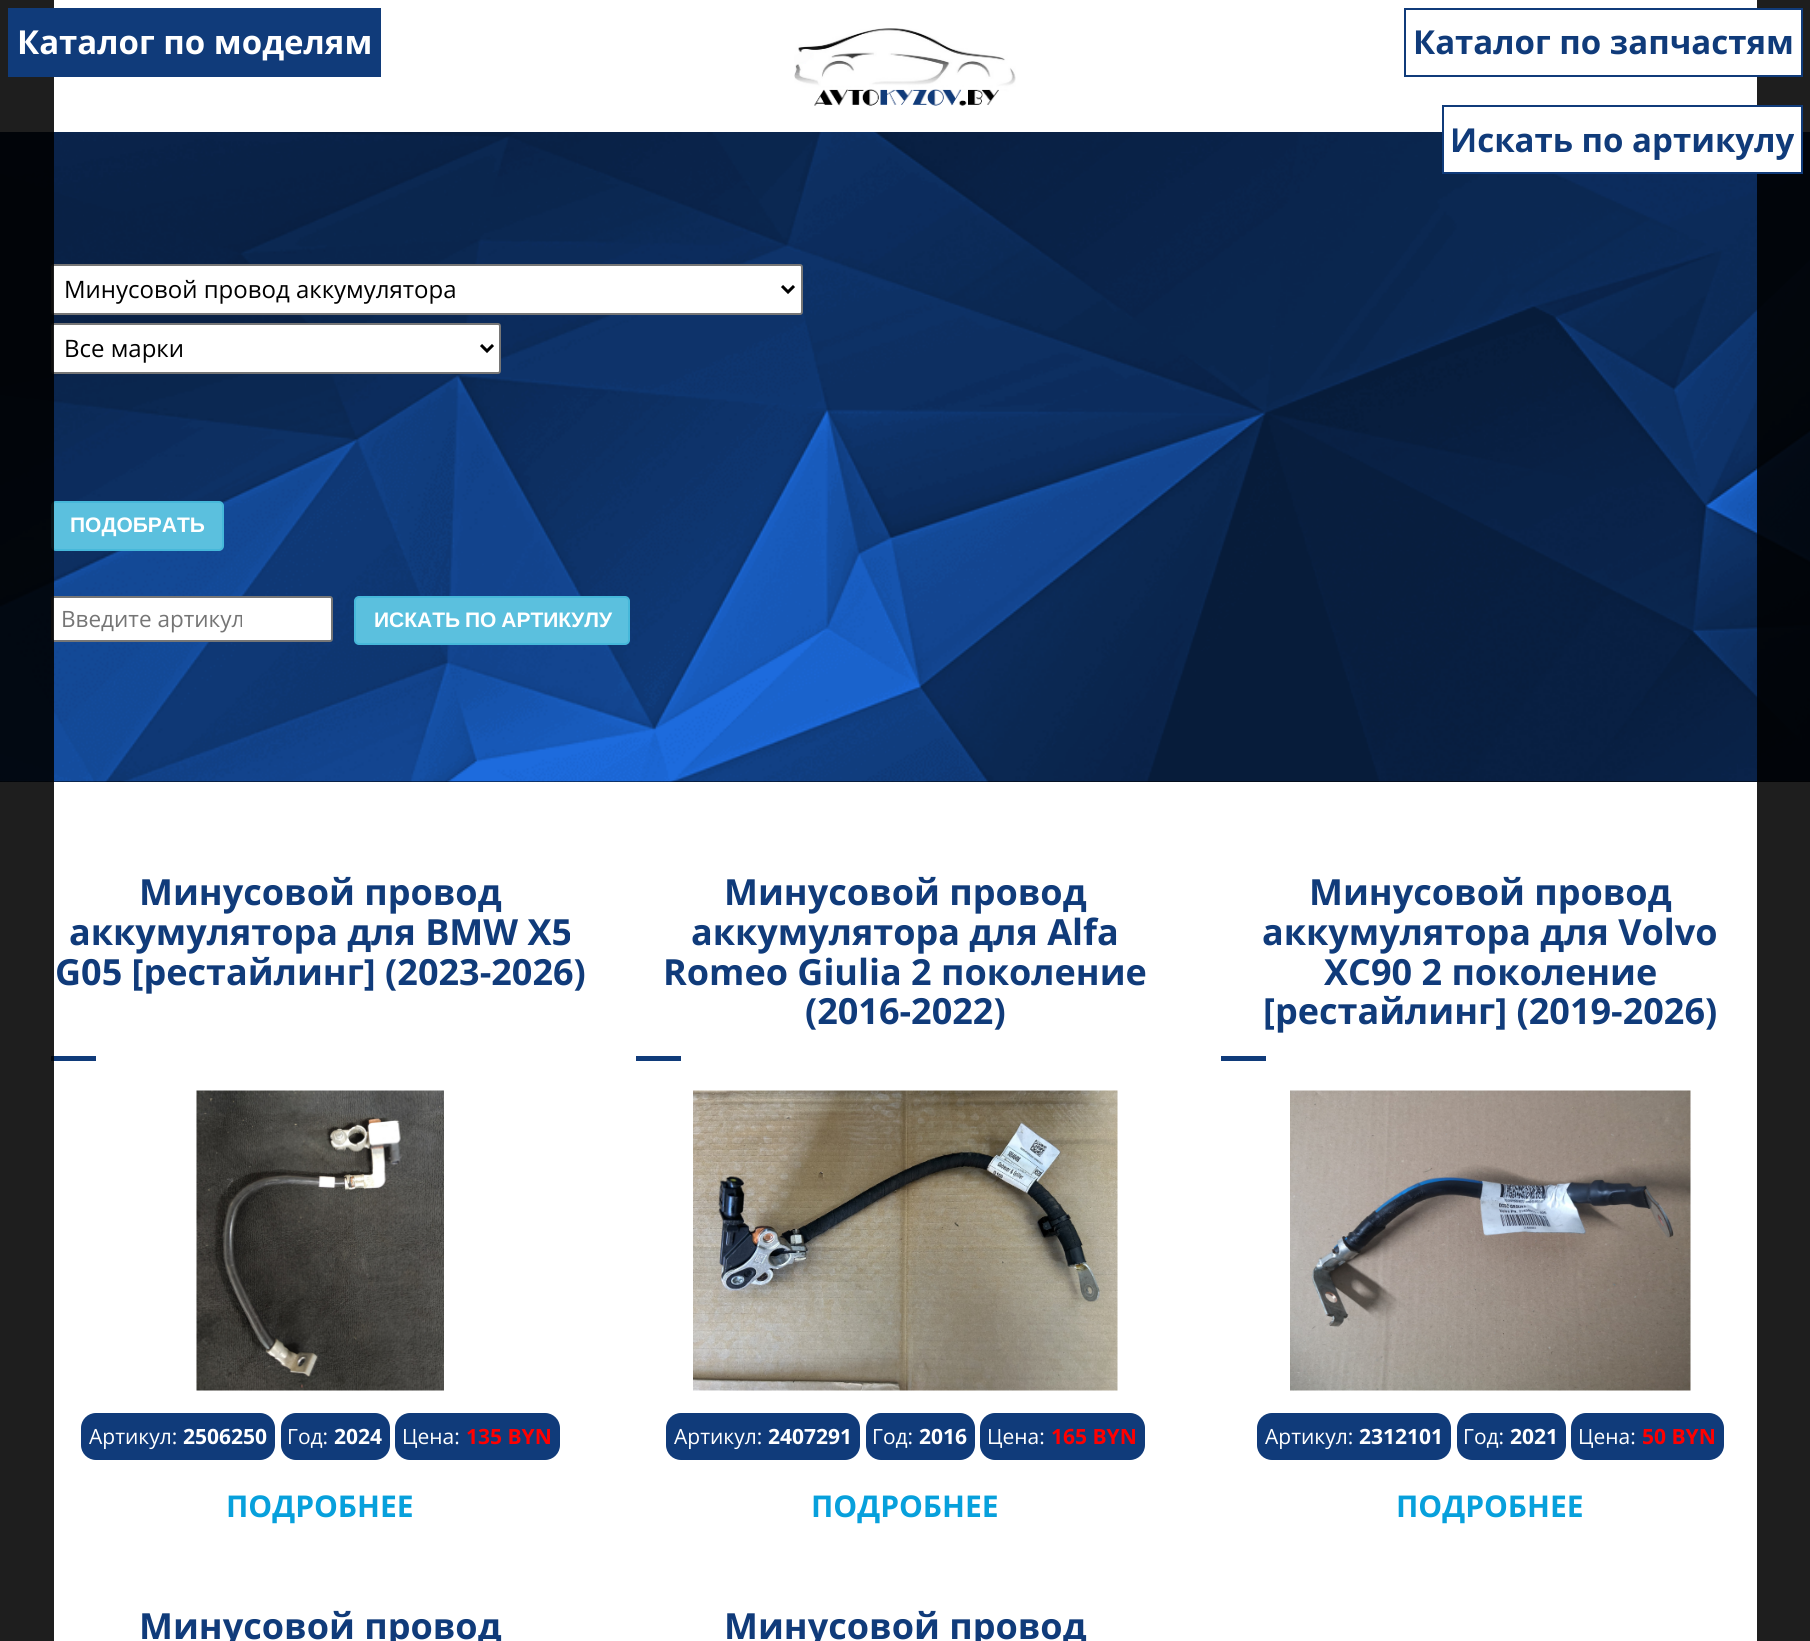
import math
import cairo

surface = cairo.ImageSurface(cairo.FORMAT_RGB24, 1810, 1641)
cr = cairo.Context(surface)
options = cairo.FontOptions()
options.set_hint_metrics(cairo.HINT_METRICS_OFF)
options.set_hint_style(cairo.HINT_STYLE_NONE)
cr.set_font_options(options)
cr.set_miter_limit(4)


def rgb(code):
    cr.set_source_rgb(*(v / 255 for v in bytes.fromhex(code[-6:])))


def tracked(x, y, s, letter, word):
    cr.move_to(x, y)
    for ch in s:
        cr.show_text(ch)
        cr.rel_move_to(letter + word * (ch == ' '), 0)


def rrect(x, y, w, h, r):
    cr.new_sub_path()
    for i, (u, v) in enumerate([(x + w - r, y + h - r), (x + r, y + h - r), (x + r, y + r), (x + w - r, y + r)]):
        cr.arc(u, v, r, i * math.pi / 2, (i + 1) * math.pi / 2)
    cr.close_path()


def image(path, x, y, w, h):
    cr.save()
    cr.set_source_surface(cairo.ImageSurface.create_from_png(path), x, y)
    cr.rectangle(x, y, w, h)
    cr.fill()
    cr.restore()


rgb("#ffffff")
cr.paint()
rgb("#000000")
cr.rectangle(0, 781, 1810, 1)
cr.fill()
image("img/2.png", 0, 132, 1810, 650)
rgb("#ffffff")
rrect(52, 265, 750, 49, 2)
cr.fill_preserve()
rgb("#767676")
cr.stroke()
rgb("#ffffff")
rrect(52, 324, 448, 49, 2)
cr.fill_preserve()
rgb("#767676")
cr.stroke()
rgb("#5bc0de")
rrect(52, 502, 171, 48, 4)
cr.fill_preserve()
rgb("#46b8da")
cr.stroke()
rgb("#ffffff")
rrect(52, 597, 280, 44, 2)
cr.fill_preserve()
rgb("#767676")
cr.stroke()
rgb("#103b7a")
cr.rectangle(51, 1056, 45, 5)
cr.fill()
cr.set_source_rgba(0, 0, 0, 0.88)
cr.rectangle(0, 0, 54, 1641)
cr.fill()
image("img/1.png", 794, 28, 222, 78)
cr.rectangle(1757, 0, 53, 1641)
cr.fill()
rgb("#103b7a")
cr.rectangle(8, 8, 373, 69)
cr.fill()
rgb("#ffffff")
cr.rectangle(1757, 10, 44, 65)
cr.fill()
cr.rectangle(1405, 9, 397, 67)
rgb("#103b7a")
cr.stroke()
rgb("#ffffff")
cr.rectangle(1443, 106, 359, 67)
cr.fill_preserve()
rgb("#103b7a")
cr.stroke()
cr.new_path()
cr.move_to(782, 286)
cr.line_to(788, 292)
cr.line_to(794, 286)
rgb("#000000")
cr.set_line_width(3)
cr.stroke()
cr.new_path()
cr.move_to(481, 345)
cr.line_to(487, 351)
cr.line_to(493, 345)
cr.stroke()
rgb("#5bc0de")
rrect(355, 597, 274, 47, 4)
cr.fill_preserve()
rgb("#46b8da")
cr.set_line_width(2)
cr.stroke()
image("img/3.png", 196, 1090, 248, 301)
rgb("#103b7a")
rrect(81, 1413, 194, 47, 15)
cr.fill()
rrect(281, 1413, 109, 47, 15)
cr.fill()
rrect(395, 1413, 165, 47, 15)
cr.fill()
cr.rectangle(636, 1056, 45, 5)
cr.fill()
image("img/4.png", 693, 1090, 425, 301)
rrect(666, 1413, 194, 47, 15)
cr.fill()
rrect(866, 1413, 109, 47, 15)
cr.fill()
rrect(980, 1413, 165, 47, 15)
cr.fill()
cr.rectangle(1221, 1056, 45, 5)
cr.fill()
image("img/5.png", 1290, 1090, 401, 301)
rrect(1257, 1413, 194, 47, 15)
cr.fill()
rrect(1457, 1413, 109, 47, 15)
cr.fill()
rrect(1571, 1413, 153, 47, 15)
cr.fill()
cr.select_font_face("Open Sans", cairo.FONT_SLANT_NORMAL, cairo.FONT_WEIGHT_BOLD)
cr.set_font_size(33)
rgb("#ffffff")
cr.move_to(17, 54)
cr.show_text("Каталог по моделям")
rgb("#103b7a")
cr.move_to(1413, 54)
cr.show_text("Каталог по запчастям")
cr.move_to(1450, 152)
cr.show_text("Искать по артикулу")
cr.select_font_face("Open Sans")
cr.set_font_size(24)
rgb("#000000")
cr.move_to(64, 298)
cr.show_text("Минусовой провод аккумулятора")
cr.move_to(64, 357)
cr.show_text("Все марки")
cr.select_font_face("Liberation Sans", cairo.FONT_SLANT_NORMAL, cairo.FONT_WEIGHT_BOLD)
cr.set_font_size(21)
rgb("#ffffff")
cr.move_to(70, 532)
cr.show_text("ПОДОБРАТЬ")
cr.select_font_face("Open Sans")
cr.set_font_size(22.5)
rgb("#757575")
cr.move_to(61, 627)
cr.show_text("Введите артикул")
cr.select_font_face("Liberation Sans", cairo.FONT_SLANT_NORMAL, cairo.FONT_WEIGHT_BOLD)
cr.set_font_size(21)
rgb("#ffffff")
tracked(374, 627, "ИСКАТЬ ПО АРТИКУЛУ", 0, -1)
cr.select_font_face("Open Sans", cairo.FONT_SLANT_NORMAL, cairo.FONT_WEIGHT_BOLD)
cr.set_font_size(36)
rgb("#103b7a")
for x, y, s in [
    (139, 905, "Минусовой провод"),
    (69, 945, "аккумулятора для BMW X5"),
    (55, 985, "G05 [рестайлинг] (2023-2026)"),
]:
    cr.move_to(x, y)
    cr.show_text(s)
cr.select_font_face("Open Sans")
cr.set_font_size(21)
rgb("#ffffff")
cr.move_to(89, 1444)
cr.show_text("Артикул:")
cr.select_font_face("Open Sans", cairo.FONT_SLANT_NORMAL, cairo.FONT_WEIGHT_BOLD)
cr.move_to(183, 1444)
cr.show_text("2506250")
cr.select_font_face("Open Sans")
cr.move_to(287, 1444)
cr.show_text("Год:")
cr.select_font_face("Open Sans", cairo.FONT_SLANT_NORMAL, cairo.FONT_WEIGHT_BOLD)
cr.move_to(334, 1444)
cr.show_text("2024")
cr.select_font_face("Open Sans")
cr.move_to(402, 1444)
cr.show_text("Цена:")
cr.select_font_face("Open Sans", cairo.FONT_SLANT_NORMAL, cairo.FONT_WEIGHT_BOLD)
rgb("#ff0000")
cr.move_to(466, 1444)
cr.show_text("135 BYN")
cr.set_font_size(30)
rgb("#07a0dc")
cr.move_to(226, 1517)
cr.show_text("ПОДРОБНЕЕ")
cr.set_font_size(36)
rgb("#103b7a")
for x, y, s in [
    (724, 905, "Минусовой провод"),
    (691, 945, "аккумулятора для Alfa"),
    (663, 985, "Romeo Giulia 2 поколение"),
    (805, 1024, "(2016-2022)"),
]:
    cr.move_to(x, y)
    cr.show_text(s)
cr.select_font_face("Open Sans")
cr.set_font_size(21)
rgb("#ffffff")
cr.move_to(674, 1444)
cr.show_text("Артикул:")
cr.select_font_face("Open Sans", cairo.FONT_SLANT_NORMAL, cairo.FONT_WEIGHT_BOLD)
cr.move_to(768, 1444)
cr.show_text("2407291")
cr.select_font_face("Open Sans")
cr.move_to(872, 1444)
cr.show_text("Год:")
cr.select_font_face("Open Sans", cairo.FONT_SLANT_NORMAL, cairo.FONT_WEIGHT_BOLD)
cr.move_to(919, 1444)
cr.show_text("2016")
cr.select_font_face("Open Sans")
cr.move_to(987, 1444)
cr.show_text("Цена:")
cr.select_font_face("Open Sans", cairo.FONT_SLANT_NORMAL, cairo.FONT_WEIGHT_BOLD)
rgb("#ff0000")
cr.move_to(1051, 1444)
cr.show_text("165 BYN")
cr.set_font_size(30)
rgb("#07a0dc")
cr.move_to(811, 1517)
cr.show_text("ПОДРОБНЕЕ")
cr.set_font_size(36)
rgb("#103b7a")
for x, y, s in [
    (1309, 905, "Минусовой провод"),
    (1262, 945, "аккумулятора для Volvo"),
    (1324, 985, "XC90 2 поколение"),
    (1263, 1024, "[рестайлинг] (2019-2026)"),
]:
    cr.move_to(x, y)
    cr.show_text(s)
cr.select_font_face("Open Sans")
cr.set_font_size(21)
rgb("#ffffff")
cr.move_to(1265, 1444)
cr.show_text("Артикул:")
cr.select_font_face("Open Sans", cairo.FONT_SLANT_NORMAL, cairo.FONT_WEIGHT_BOLD)
cr.move_to(1359, 1444)
cr.show_text("2312101")
cr.select_font_face("Open Sans")
cr.move_to(1463, 1444)
cr.show_text("Год:")
cr.select_font_face("Open Sans", cairo.FONT_SLANT_NORMAL, cairo.FONT_WEIGHT_BOLD)
cr.move_to(1510, 1444)
cr.show_text("2021")
cr.select_font_face("Open Sans")
cr.move_to(1578, 1444)
cr.show_text("Цена:")
cr.select_font_face("Open Sans", cairo.FONT_SLANT_NORMAL, cairo.FONT_WEIGHT_BOLD)
rgb("#ff0000")
cr.move_to(1642, 1444)
cr.show_text("50 BYN")
cr.set_font_size(30)
rgb("#07a0dc")
cr.move_to(1396, 1517)
cr.show_text("ПОДРОБНЕЕ")
cr.set_font_size(36)
rgb("#103b7a")
cr.move_to(139, 1639)
cr.show_text("Минусовой провод")
cr.move_to(724, 1639)
cr.show_text("Минусовой провод")
surface.write_to_png("page.png")
